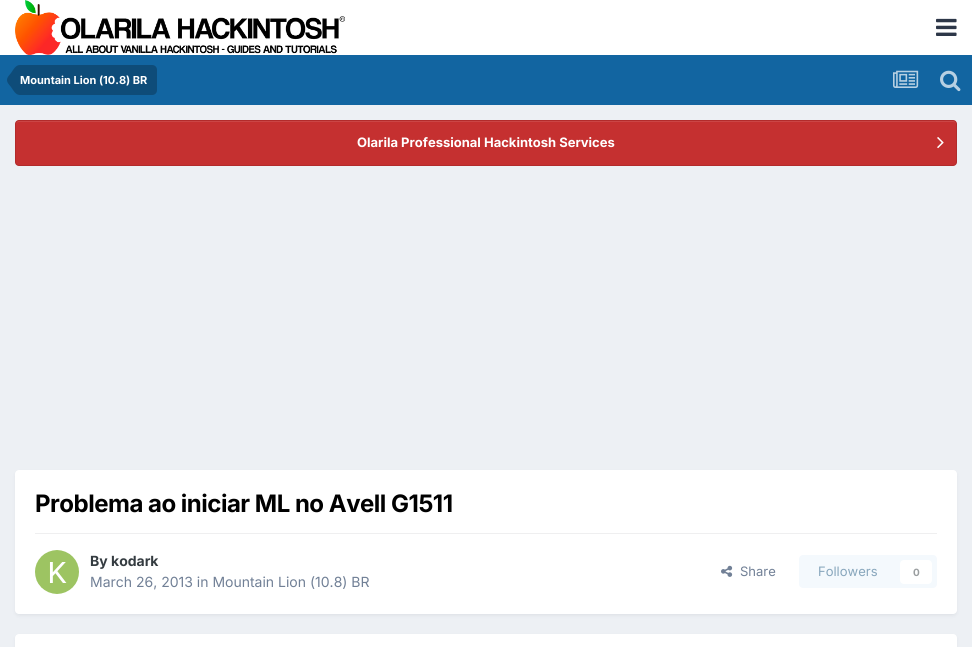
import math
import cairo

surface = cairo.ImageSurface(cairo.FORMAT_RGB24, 972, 647)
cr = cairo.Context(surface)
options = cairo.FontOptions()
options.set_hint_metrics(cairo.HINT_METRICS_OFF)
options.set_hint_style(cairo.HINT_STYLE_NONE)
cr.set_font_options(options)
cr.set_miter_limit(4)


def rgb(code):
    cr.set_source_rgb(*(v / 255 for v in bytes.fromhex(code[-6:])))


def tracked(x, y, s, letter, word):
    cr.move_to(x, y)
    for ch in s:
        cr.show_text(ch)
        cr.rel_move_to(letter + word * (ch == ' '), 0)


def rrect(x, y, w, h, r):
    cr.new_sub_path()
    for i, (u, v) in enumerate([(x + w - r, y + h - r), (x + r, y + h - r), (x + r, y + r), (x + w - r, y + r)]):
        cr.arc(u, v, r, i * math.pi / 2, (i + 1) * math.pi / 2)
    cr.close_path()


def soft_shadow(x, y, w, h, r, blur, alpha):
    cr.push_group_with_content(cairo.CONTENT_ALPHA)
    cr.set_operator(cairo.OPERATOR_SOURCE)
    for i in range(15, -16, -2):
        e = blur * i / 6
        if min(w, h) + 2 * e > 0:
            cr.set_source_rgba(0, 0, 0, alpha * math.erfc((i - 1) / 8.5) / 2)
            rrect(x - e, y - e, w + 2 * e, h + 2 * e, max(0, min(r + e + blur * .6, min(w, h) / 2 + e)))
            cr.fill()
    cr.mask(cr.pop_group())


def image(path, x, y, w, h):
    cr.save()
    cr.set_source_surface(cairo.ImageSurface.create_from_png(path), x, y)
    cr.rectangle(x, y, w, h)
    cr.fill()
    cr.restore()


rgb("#edf0f4")
cr.paint()
rgb("#ffffff")
cr.rectangle(0, 0, 972, 55)
cr.fill()
image("img/1.png", 15, 0, 330, 55)
image("img/2.png", 936, 18, 21, 18)
rgb("#1265a1")
cr.rectangle(0, 55, 972, 50)
cr.fill()
rgb("#0e4c79")
cr.new_path()
cr.move_to(20, 65)
cr.line_to(152, 65)
cr.curve_to(155, 65, 157, 67, 157, 70)
cr.line_to(157, 90)
cr.curve_to(157, 93, 155, 95, 152, 95)
cr.line_to(20, 95)
cr.close_path()
cr.fill()
cr.new_path()
cr.move_to(20, 80)
cr.line_to(20, 95)
cr.curve_to(15.5, 95, 13.5, 90.5, 11, 87)
cr.curve_to(9.5, 85, 7, 83, 7, 80)
cr.close_path()
cr.move_to(20, 80)
cr.line_to(7, 80)
cr.curve_to(7, 77, 9.5, 75, 11, 73)
cr.curve_to(13.5, 69.5, 15.5, 65, 20, 65)
cr.close_path()
cr.fill()
image("img/3.png", 893, 70, 26, 18)
image("img/4.png", 940, 70, 21, 22)
rgb("#c53030")
rrect(15, 120, 942, 46, 4)
cr.fill()
rgb("#cb4545")
cr.new_path()
cr.move_to(19, 122)
cr.line_to(953, 122)
cr.curve_to(955, 122, 956, 123, 956, 125)
cr.curve_to(956, 123, 955, 121, 953, 121)
cr.line_to(19, 121)
cr.curve_to(17, 121, 16, 123, 16, 125)
cr.curve_to(16, 123, 17, 122, 19, 122)
cr.close_path()
cr.fill()
rrect(15.5, 120.5, 941, 45, 3.5)
cr.set_source_rgba(0, 0, 0, 0.1)
cr.set_line_width(1)
cr.stroke()
image("img/5.png", 937, 137, 7, 12)
rgb("#2d3748")
soft_shadow(16, 473, 940, 142, 3, 2, 0.1)
rgb("#ffffff")
rrect(15, 470, 942, 144, 4)
cr.fill()
rgb("#efeff0")
cr.rectangle(35, 533, 902, 1)
cr.fill()
image("img/6.png", 35, 550, 44, 44)
image("img/7.png", 721, 565, 12, 12)
rgb("#f4f9fd")
rrect(799, 555, 138, 33, 4)
cr.fill()
rgb("#ffffff")
rrect(900, 560, 32, 24, 4)
cr.fill()
rgb("#2d3748")
soft_shadow(16, 637, 940, 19, 3, 2, 0.1)
rgb("#ffffff")
rrect(15, 634, 942, 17, 4)
cr.fill()
cr.select_font_face("Inter", cairo.FONT_SLANT_NORMAL, cairo.FONT_WEIGHT_BOLD)
cr.set_font_size(11)
cr.move_to(20, 84)
cr.show_text("Mountain Lion (10.8) BR")
cr.set_font_size(13)
cr.move_to(357, 147)
cr.show_text("Olarila Professional Hackintosh Services")
cr.set_font_size(24)
rgb("#000000")
tracked(35, 512, "Problema ao iniciar ML no Avell G1511", -0.5, 0)
cr.set_font_size(14)
rgb("#353c41")
cr.move_to(90, 566)
cr.show_text("By kodark")
cr.select_font_face("Inter")
rgb("#718096")
cr.move_to(90, 587)
cr.show_text("March 26, 2013 in Mountain Lion (10.8) BR")
cr.set_font_size(13)
cr.move_to(740, 576)
cr.show_text("Share")
rgb("#87a6bc")
cr.move_to(818, 576)
cr.show_text("Followers")
cr.select_font_face("Inter", cairo.FONT_SLANT_NORMAL, cairo.FONT_WEIGHT_BOLD)
cr.set_font_size(10)
rgb("#9a9ea0")
cr.move_to(913, 576)
cr.show_text("0")
surface.write_to_png("page.png")
